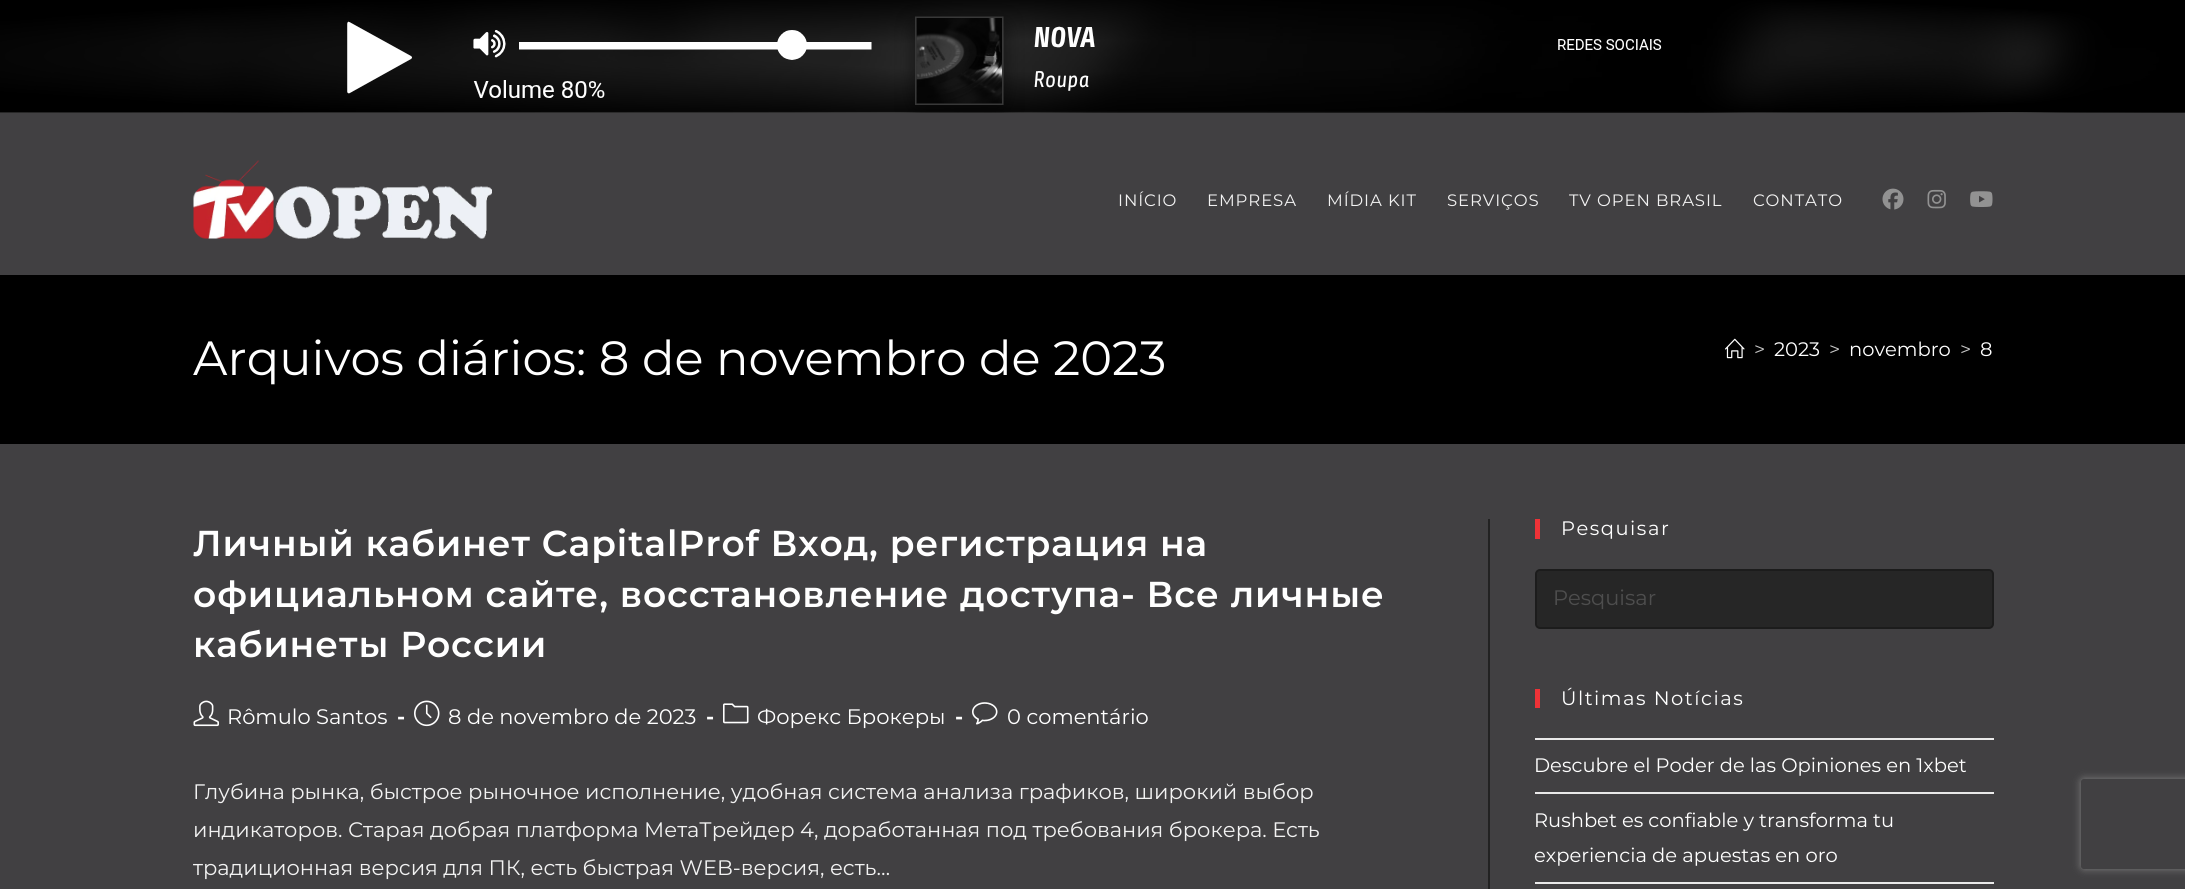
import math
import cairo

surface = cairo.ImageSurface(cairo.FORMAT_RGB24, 2185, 889)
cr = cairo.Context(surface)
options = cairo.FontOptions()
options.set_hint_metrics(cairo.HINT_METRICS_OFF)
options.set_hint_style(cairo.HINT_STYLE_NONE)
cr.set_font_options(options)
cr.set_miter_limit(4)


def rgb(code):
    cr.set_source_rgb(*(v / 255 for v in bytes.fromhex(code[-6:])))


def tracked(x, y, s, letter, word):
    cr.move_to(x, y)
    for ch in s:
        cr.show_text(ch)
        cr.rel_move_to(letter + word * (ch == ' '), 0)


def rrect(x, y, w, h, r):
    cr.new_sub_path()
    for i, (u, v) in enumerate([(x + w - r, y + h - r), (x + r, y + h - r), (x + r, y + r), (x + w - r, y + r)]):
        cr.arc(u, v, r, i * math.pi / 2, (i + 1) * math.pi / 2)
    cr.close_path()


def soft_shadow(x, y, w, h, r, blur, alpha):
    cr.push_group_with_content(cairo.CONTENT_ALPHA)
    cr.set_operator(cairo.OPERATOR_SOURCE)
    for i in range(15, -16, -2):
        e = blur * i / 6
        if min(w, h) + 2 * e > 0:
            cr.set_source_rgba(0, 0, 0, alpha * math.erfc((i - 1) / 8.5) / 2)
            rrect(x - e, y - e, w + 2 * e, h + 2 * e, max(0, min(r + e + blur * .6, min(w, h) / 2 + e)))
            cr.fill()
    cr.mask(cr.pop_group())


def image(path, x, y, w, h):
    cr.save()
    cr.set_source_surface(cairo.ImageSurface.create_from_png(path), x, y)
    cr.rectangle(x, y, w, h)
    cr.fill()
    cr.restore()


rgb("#414042")
cr.paint()
image("img/1.png", 0, 0, 2185, 113)
image("img/2.png", 193, 160, 299, 79)
image("img/3.png", 1882, 188, 22, 22)
image("img/4.png", 1927, 189, 19, 20)
image("img/5.png", 1970, 191, 23, 16)
rgb("#000000")
cr.rectangle(0, 275, 2185, 169)
cr.fill()
image("img/6.png", 1725, 338, 20, 21)
rgb("#222222")
cr.rectangle(1488, 519, 2, 370)
cr.fill()
image("img/7.png", 193, 700, 26, 27)
image("img/8.png", 414, 700, 26, 27)
image("img/9.png", 723, 703, 26, 21)
image("img/10.png", 972, 702, 26, 23)
rgb("#ee3237")
cr.rectangle(1535, 519, 5, 20)
cr.fill()
rgb("#262626")
rrect(1536, 570, 457, 58, 4)
cr.fill_preserve()
rgb("#1c1c1c")
cr.stroke()
for x, y, w, h, color in [
    (1535, 689, 5, 19, "#ee3237"),
    (1535, 738, 459, 2, "#e9e9e9"),
    (1535, 792, 459, 2, "#e9e9e9"),
    (1535, 882, 459, 2, "#e9e9e9"),
]:
    rgb(color)
    cr.rectangle(x, y, w, h)
    cr.fill()
cr.save()
cr.set_fill_rule(cairo.FILL_RULE_EVEN_ODD)
cr.new_path()
cr.move_to(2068, 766)
cr.line_to(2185, 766)
cr.line_to(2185, 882)
cr.line_to(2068, 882)
cr.close_path()
cr.move_to(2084, 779)
cr.line_to(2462, 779)
cr.curve_to(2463.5, 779, 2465, 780.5, 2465, 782)
cr.line_to(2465, 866)
cr.curve_to(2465, 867.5, 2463.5, 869, 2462, 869)
cr.line_to(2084, 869)
cr.curve_to(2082.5, 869, 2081, 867.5, 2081, 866)
cr.line_to(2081, 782)
cr.curve_to(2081, 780.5, 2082.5, 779, 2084, 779)
cr.close_path()
cr.clip()
rgb("#808080")
soft_shadow(2081, 779, 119, 90, 3, 4, 1)
cr.restore()
cr.select_font_face("Montserrat")
cr.set_font_size(16.5)
rgb("#f2f2f2")
for x, y, s in [
    (1118, 206, "INÍCIO"),
    (1207, 206, "EMPRESA"),
    (1327, 206, "MÍDIA KIT"),
    (1447, 206, "SERVIÇOS"),
    (1569, 206, "TV OPEN BRASIL"),
    (1753, 206, "CONTATO"),
]:
    tracked(x, y, s, 0.9, 0)
cr.set_font_size(48)
rgb("#ffffff")
cr.move_to(193, 375)
cr.show_text("Arquivos diários: 8 de novembro de 2023")
cr.set_font_size(19.5)
rgb("#c6c6c6")
cr.move_to(1754, 356)
cr.show_text(">")
rgb("#ffffff")
cr.move_to(1774, 356)
cr.show_text("2023")
rgb("#c6c6c6")
cr.move_to(1829, 356)
cr.show_text(">")
rgb("#ffffff")
cr.move_to(1849, 356)
cr.show_text("novembro")
rgb("#c6c6c6")
cr.move_to(1960, 356)
cr.show_text(">")
rgb("#ffffff")
cr.move_to(1980, 356)
cr.show_text("8")
cr.select_font_face("Montserrat SemiBold")
cr.set_font_size(36)
for x, y, s in [
    (193, 556, "Личный кабинет CapitalProf Вход, регистрация на"),
    (193, 607, "официальном сайте, восстановление доступа- Все личные"),
    (193, 657, "кабинеты России"),
]:
    tracked(x, y, s, 0.9, 0)
cr.select_font_face("Montserrat")
cr.set_font_size(21)
cr.move_to(227, 724)
cr.show_text("Rômulo Santos")
cr.select_font_face("Montserrat", cairo.FONT_SLANT_NORMAL, cairo.FONT_WEIGHT_BOLD)
cr.move_to(397, 724)
cr.show_text("-")
cr.select_font_face("Montserrat")
cr.move_to(448, 724)
cr.show_text("8 de novembro de 2023")
cr.select_font_face("Montserrat", cairo.FONT_SLANT_NORMAL, cairo.FONT_WEIGHT_BOLD)
cr.move_to(706, 724)
cr.show_text("-")
cr.select_font_face("Montserrat")
cr.move_to(757, 724)
cr.show_text("Форекс Брокеры")
cr.select_font_face("Montserrat", cairo.FONT_SLANT_NORMAL, cairo.FONT_WEIGHT_BOLD)
cr.move_to(955, 724)
cr.show_text("-")
cr.select_font_face("Montserrat")
cr.move_to(1007, 724)
cr.show_text("0 comentário")
rgb("#f2f2f2")
for x, y, s in [
    (193, 799, "Глубина рынка, быстрое рыночное исполнение, удобная система анализа графиков, широкий выбор"),
    (193, 837, "индикаторов. Старая добрая платформа МетаТрейдер 4, доработанная под требования брокера. Есть"),
    (193, 875, "традиционная версия для ПК, есть быстрая WEB-версия, есть…"),
]:
    cr.move_to(x, y)
    cr.show_text(s)
cr.set_font_size(19.5)
rgb("#ffffff")
tracked(1561, 535, "Pesquisar", 1.5, 0)
cr.set_font_size(21)
rgb("#4e4e4e")
cr.move_to(1553, 605)
cr.show_text("Pesquisar")
cr.set_font_size(19.5)
rgb("#ffffff")
tracked(1561, 705, "Últimas Notícias", 1.5, 0)
for x, y, s in [
    (1534, 772, "Descubre el Poder de las Opiniones en 1xbet"),
    (1534, 827, "Rushbet es confiable y transforma tu"),
    (1534, 862, "experiencia de apuestas en oro"),
]:
    cr.move_to(x, y)
    cr.show_text(s)
surface.write_to_png("page.png")
